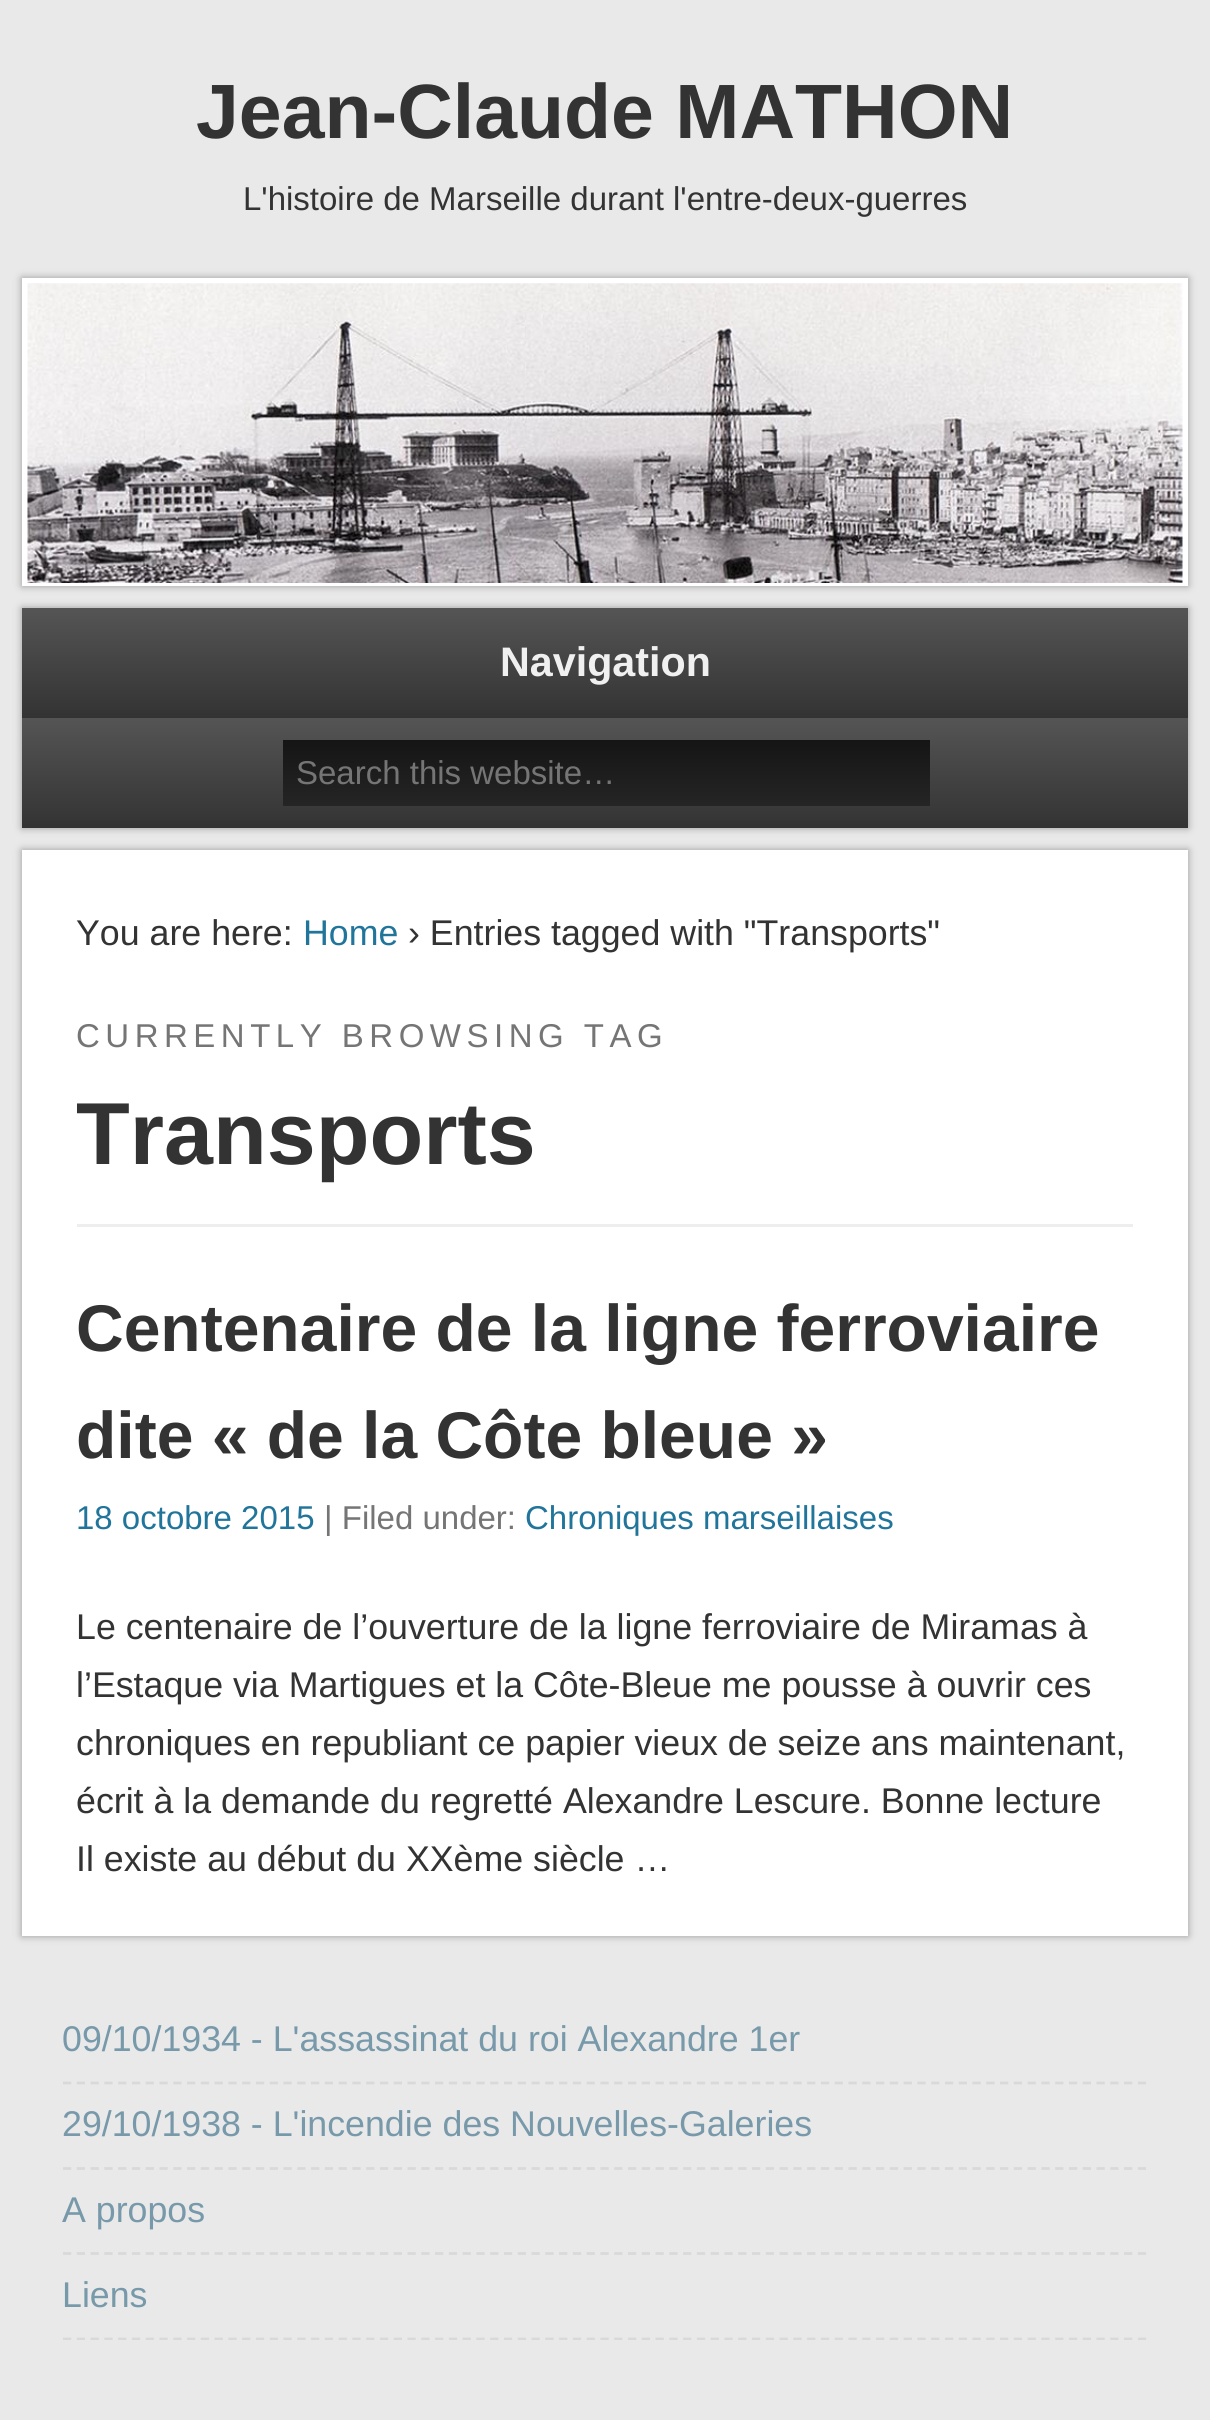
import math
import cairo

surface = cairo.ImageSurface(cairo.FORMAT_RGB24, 1210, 2420)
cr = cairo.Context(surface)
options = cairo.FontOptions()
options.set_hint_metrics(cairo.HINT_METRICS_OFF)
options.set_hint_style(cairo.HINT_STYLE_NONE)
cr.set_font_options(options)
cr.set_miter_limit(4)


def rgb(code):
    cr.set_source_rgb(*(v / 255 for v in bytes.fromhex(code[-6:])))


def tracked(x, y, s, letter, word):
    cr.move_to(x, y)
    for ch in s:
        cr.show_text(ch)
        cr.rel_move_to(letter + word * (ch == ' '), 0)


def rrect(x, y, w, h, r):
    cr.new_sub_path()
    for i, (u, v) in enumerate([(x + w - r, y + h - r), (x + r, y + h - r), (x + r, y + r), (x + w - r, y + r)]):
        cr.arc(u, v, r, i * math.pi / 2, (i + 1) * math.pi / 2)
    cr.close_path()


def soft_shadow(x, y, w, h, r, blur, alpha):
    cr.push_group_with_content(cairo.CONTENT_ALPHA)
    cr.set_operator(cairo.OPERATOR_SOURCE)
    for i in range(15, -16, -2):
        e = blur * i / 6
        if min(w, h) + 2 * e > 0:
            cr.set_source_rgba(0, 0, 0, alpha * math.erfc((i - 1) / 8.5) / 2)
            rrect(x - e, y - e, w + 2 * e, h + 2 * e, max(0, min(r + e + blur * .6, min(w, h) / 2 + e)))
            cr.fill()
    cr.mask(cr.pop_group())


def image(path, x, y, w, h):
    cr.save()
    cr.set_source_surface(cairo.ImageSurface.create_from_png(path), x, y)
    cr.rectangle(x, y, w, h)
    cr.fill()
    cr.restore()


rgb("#e9e9e9")
cr.paint()
rgb("#999999")
soft_shadow(22, 278, 1166, 308, 0, 4, 1)
rgb("#ffffff")
cr.rectangle(22, 278, 1166, 308)
cr.fill()
image("img/1.png", 27, 283, 1156, 300)
rgb("#999999")
soft_shadow(22, 608, 1166, 220, 0, 4, 1)
gradient = cairo.LinearGradient(605, 608, 605, 938)
gradient.add_color_stop_rgba(0, 0.333, 0.333, 0.333, 1)
gradient.add_color_stop_rgba(0.33, 0.2, 0.2, 0.2, 1)
gradient.add_color_stop_rgba(0.33, 0.333, 0.333, 0.333, 1)
gradient.add_color_stop_rgba(0.67, 0.2, 0.2, 0.2, 1)
gradient.add_color_stop_rgba(0.67, 0.333, 0.333, 0.333, 1)
gradient.add_color_stop_rgba(1, 0.2, 0.2, 0.2, 1)
cr.set_source(gradient)
cr.rectangle(22, 718, 1166, 110)
cr.fill()
gradient = cairo.LinearGradient(605, 608, 605, 718)
gradient.add_color_stop_rgba(0, 0.333, 0.333, 0.333, 1)
gradient.add_color_stop_rgba(1, 0.2, 0.2, 0.2, 1)
cr.set_source(gradient)
cr.rectangle(22, 608, 1166, 110)
cr.fill()
gradient = cairo.LinearGradient(606, 740, 606, 806)
gradient.add_color_stop_rgba(0, 0.082, 0.082, 0.082, 1)
gradient.add_color_stop_rgba(1, 0.145, 0.145, 0.145, 1)
cr.set_source(gradient)
cr.rectangle(283, 740, 647, 66)
cr.fill()
rgb("#999999")
soft_shadow(22, 850, 1166, 1086, 0, 4, 1)
rgb("#ffffff")
cr.rectangle(22, 850, 1166, 1086)
cr.fill()
rgb("#eeeeee")
cr.rectangle(77, 1224, 1056, 3)
cr.fill()
cr.new_path()
cr.move_to(63, 2083)
cr.line_to(1147, 2083)
rgb("#d9d9d9")
cr.set_line_width(2.8)
cr.set_dash([8.25, 5.53])
cr.stroke()
cr.new_path()
cr.move_to(63, 2168.5)
cr.line_to(1147, 2168.5)
cr.stroke()
cr.new_path()
cr.move_to(63, 2253.5)
cr.line_to(1147, 2253.5)
cr.stroke()
cr.save()
cr.rectangle(63, 1999, 1084, 341)
cr.clip()
cr.new_path()
cr.move_to(63, 2339)
cr.line_to(1147, 2339)
cr.stroke()
cr.restore()
cr.select_font_face("Liberation Sans", cairo.FONT_SLANT_NORMAL, cairo.FONT_WEIGHT_BOLD)
cr.set_font_size(77)
rgb("#333333")
cr.move_to(196, 138)
cr.show_text("Jean-Claude MATHON")
cr.select_font_face("Liberation Sans")
cr.set_font_size(33)
cr.move_to(243, 210)
cr.show_text("L'histoire de Marseille durant l'entre-deux-guerres")
cr.select_font_face("Liberation Sans", cairo.FONT_SLANT_NORMAL, cairo.FONT_WEIGHT_BOLD)
cr.set_font_size(41.25)
rgb("#f0f0f0")
cr.move_to(500, 676)
cr.show_text("Navigation")
cr.select_font_face("Liberation Sans")
cr.set_font_size(33)
rgb("#757575")
cr.move_to(296, 784)
cr.show_text("Search this website…")
cr.set_font_size(35.75)
rgb("#333333")
cr.move_to(76, 945)
cr.show_text("You are here:")
rgb("#21759b")
cr.move_to(303, 945)
cr.show_text("Home")
rgb("#333333")
cr.move_to(408, 945)
cr.show_text("› Entries tagged with \"Transports\"")
cr.set_font_size(33)
rgb("#757575")
tracked(76, 1047, "CURRENTLY BROWSING TAG", 5.5, 0)
cr.select_font_face("Liberation Sans", cairo.FONT_SLANT_NORMAL, cairo.FONT_WEIGHT_BOLD)
cr.set_font_size(88)
rgb("#333333")
cr.move_to(76, 1164)
cr.show_text("Transports")
cr.set_font_size(66)
cr.move_to(76, 1351)
cr.show_text("Centenaire de la ligne ferroviaire")
cr.move_to(76, 1458)
cr.show_text("dite « de la Côte bleue »")
cr.select_font_face("Liberation Sans")
cr.set_font_size(33)
rgb("#21759b")
cr.move_to(76, 1529)
cr.show_text("18 octobre 2015")
rgb("#757575")
cr.move_to(324, 1529)
cr.show_text("| Filed under:")
rgb("#21759b")
cr.move_to(525, 1529)
cr.show_text("Chroniques marseillaises")
cr.set_font_size(35.75)
rgb("#333333")
for x, y, s in [
    (76, 1639, "Le centenaire de l’ouverture de la ligne ferroviaire de Miramas à"),
    (76, 1697, "l’Estaque via Martigues et la Côte-Bleue me pousse à ouvrir ces"),
    (76, 1755, "chroniques en republiant ce papier vieux de seize ans maintenant,"),
    (76, 1813, "écrit à la demande du regretté Alexandre Lescure. Bonne lecture"),
    (76, 1871, "Il existe au début du XXème siècle …"),
]:
    cr.move_to(x, y)
    cr.show_text(s)
rgb("#7799aa")
for x, y, s in [
    (62, 2051, "09/10/1934 - L'assassinat du roi Alexandre 1er"),
    (62, 2136, "29/10/1938 - L'incendie des Nouvelles-Galeries"),
    (62, 2222, "A propos"),
    (62, 2307, "Liens"),
]:
    cr.move_to(x, y)
    cr.show_text(s)
surface.write_to_png("page.png")
